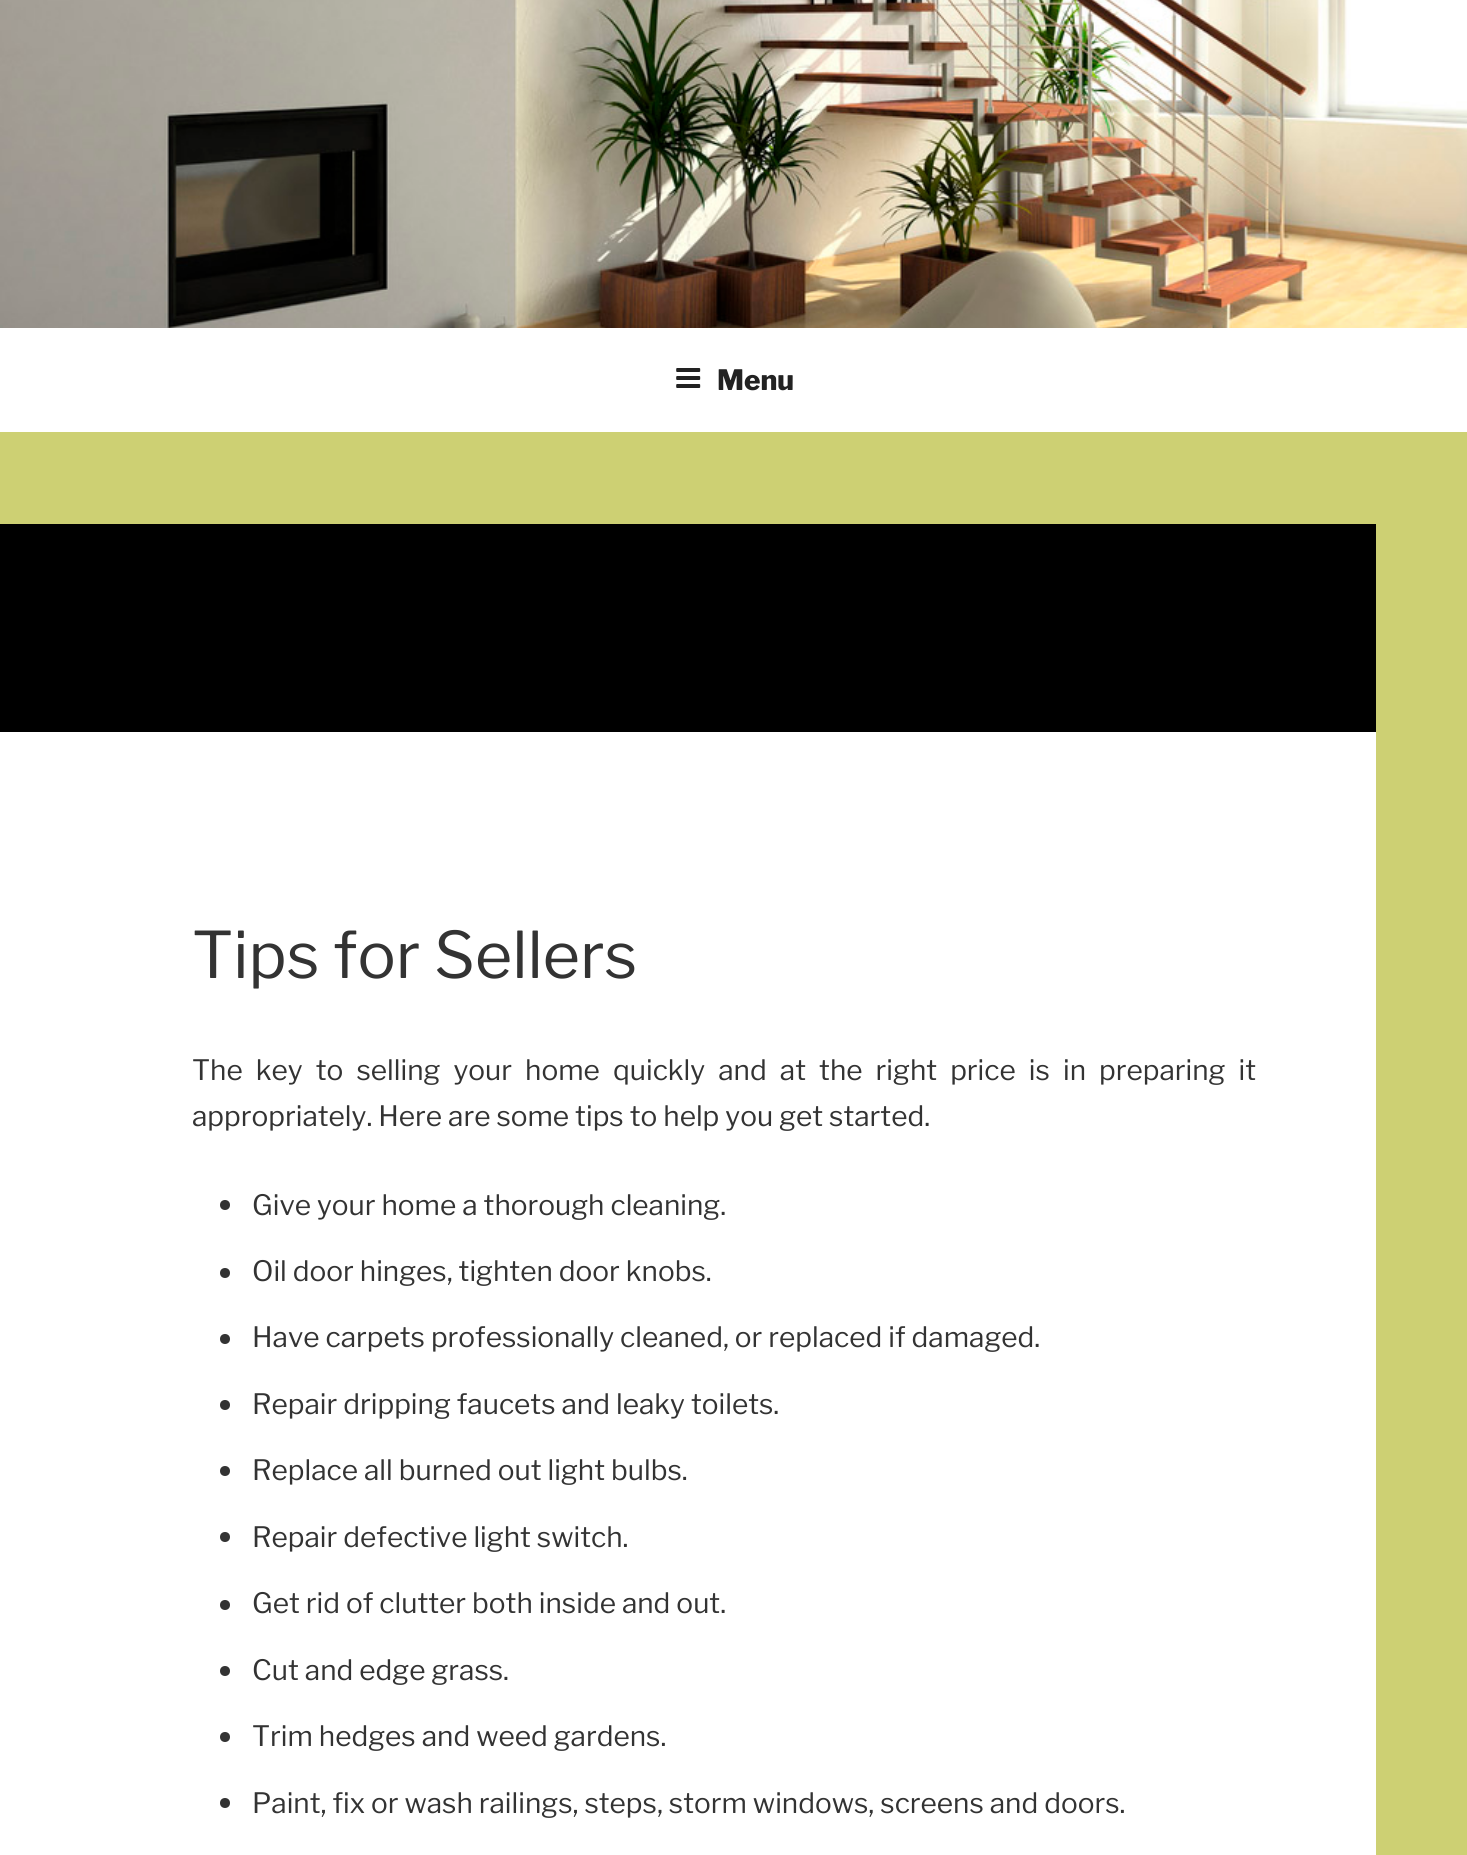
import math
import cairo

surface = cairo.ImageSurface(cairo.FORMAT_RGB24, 1467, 1855)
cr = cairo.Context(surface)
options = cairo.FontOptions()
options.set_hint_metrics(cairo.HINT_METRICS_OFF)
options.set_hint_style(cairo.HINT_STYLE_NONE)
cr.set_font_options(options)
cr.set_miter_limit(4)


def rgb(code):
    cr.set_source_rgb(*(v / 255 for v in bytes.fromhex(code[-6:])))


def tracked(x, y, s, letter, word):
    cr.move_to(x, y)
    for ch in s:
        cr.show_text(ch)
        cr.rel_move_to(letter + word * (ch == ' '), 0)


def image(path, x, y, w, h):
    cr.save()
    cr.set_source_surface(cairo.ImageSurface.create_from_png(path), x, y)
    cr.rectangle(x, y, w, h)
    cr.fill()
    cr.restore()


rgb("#ffffff")
cr.paint()
image("img/1.png", 0, 0, 1467, 328)
image("img/2.png", 676, 368, 25, 20)
for x, y, w, h, color in [
    (0, 524, 1376, 208, "#000000"),
    (0, 432, 1376, 92, "#cdd073"),
    (1376, 432, 91, 1423, "#cdd073"),
]:
    rgb(color)
    cr.rectangle(x, y, w, h)
    cr.fill()
rgb("#333333")
cr.arc(225, 1205, 5, 0, 2 * math.pi)
cr.fill()
cr.arc(225, 1273, 5, 0, 2 * math.pi)
cr.fill()
cr.arc(225, 1339, 5, 0, 2 * math.pi)
cr.fill()
cr.arc(225, 1405, 5, 0, 2 * math.pi)
cr.fill()
cr.arc(225, 1471, 5, 0, 2 * math.pi)
cr.fill()
cr.arc(225, 1537, 5, 0, 2 * math.pi)
cr.fill()
cr.arc(225, 1605, 5, 0, 2 * math.pi)
cr.fill()
cr.arc(225, 1671, 5, 0, 2 * math.pi)
cr.fill()
cr.arc(225, 1737, 5, 0, 2 * math.pi)
cr.fill()
cr.arc(225, 1803, 5, 0, 2 * math.pi)
cr.fill()
cr.select_font_face("Libre Franklin ExtraBold")
cr.set_font_size(28)
rgb("#222222")
cr.move_to(717, 390)
cr.show_text("Menu")
cr.select_font_face("Libre Franklin")
cr.set_font_size(64)
rgb("#333333")
cr.move_to(192, 978)
cr.show_text("Tips for Sellers")
cr.set_font_size(28)
tracked(192, 1080, "The key to selling your home quickly and at the right price is in preparing it", 0, 7.1)
for x, y, s in [
    (192, 1126, "appropriately. Here are some tips to help you get started."),
    (252, 1215, "Give your home a thorough cleaning."),
    (252, 1281, "Oil door hinges, tighten door knobs."),
    (252, 1347, "Have carpets professionally cleaned, or replaced if damaged."),
    (252, 1414, "Repair dripping faucets and leaky toilets."),
    (252, 1480, "Replace all burned out light bulbs."),
    (252, 1547, "Repair defective light switch."),
    (252, 1613, "Get rid of clutter both inside and out."),
    (252, 1680, "Cut and edge grass."),
    (252, 1746, "Trim hedges and weed gardens."),
    (252, 1813, "Paint, fix or wash railings, steps, storm windows, screens and doors."),
]:
    cr.move_to(x, y)
    cr.show_text(s)
surface.write_to_png("page.png")
